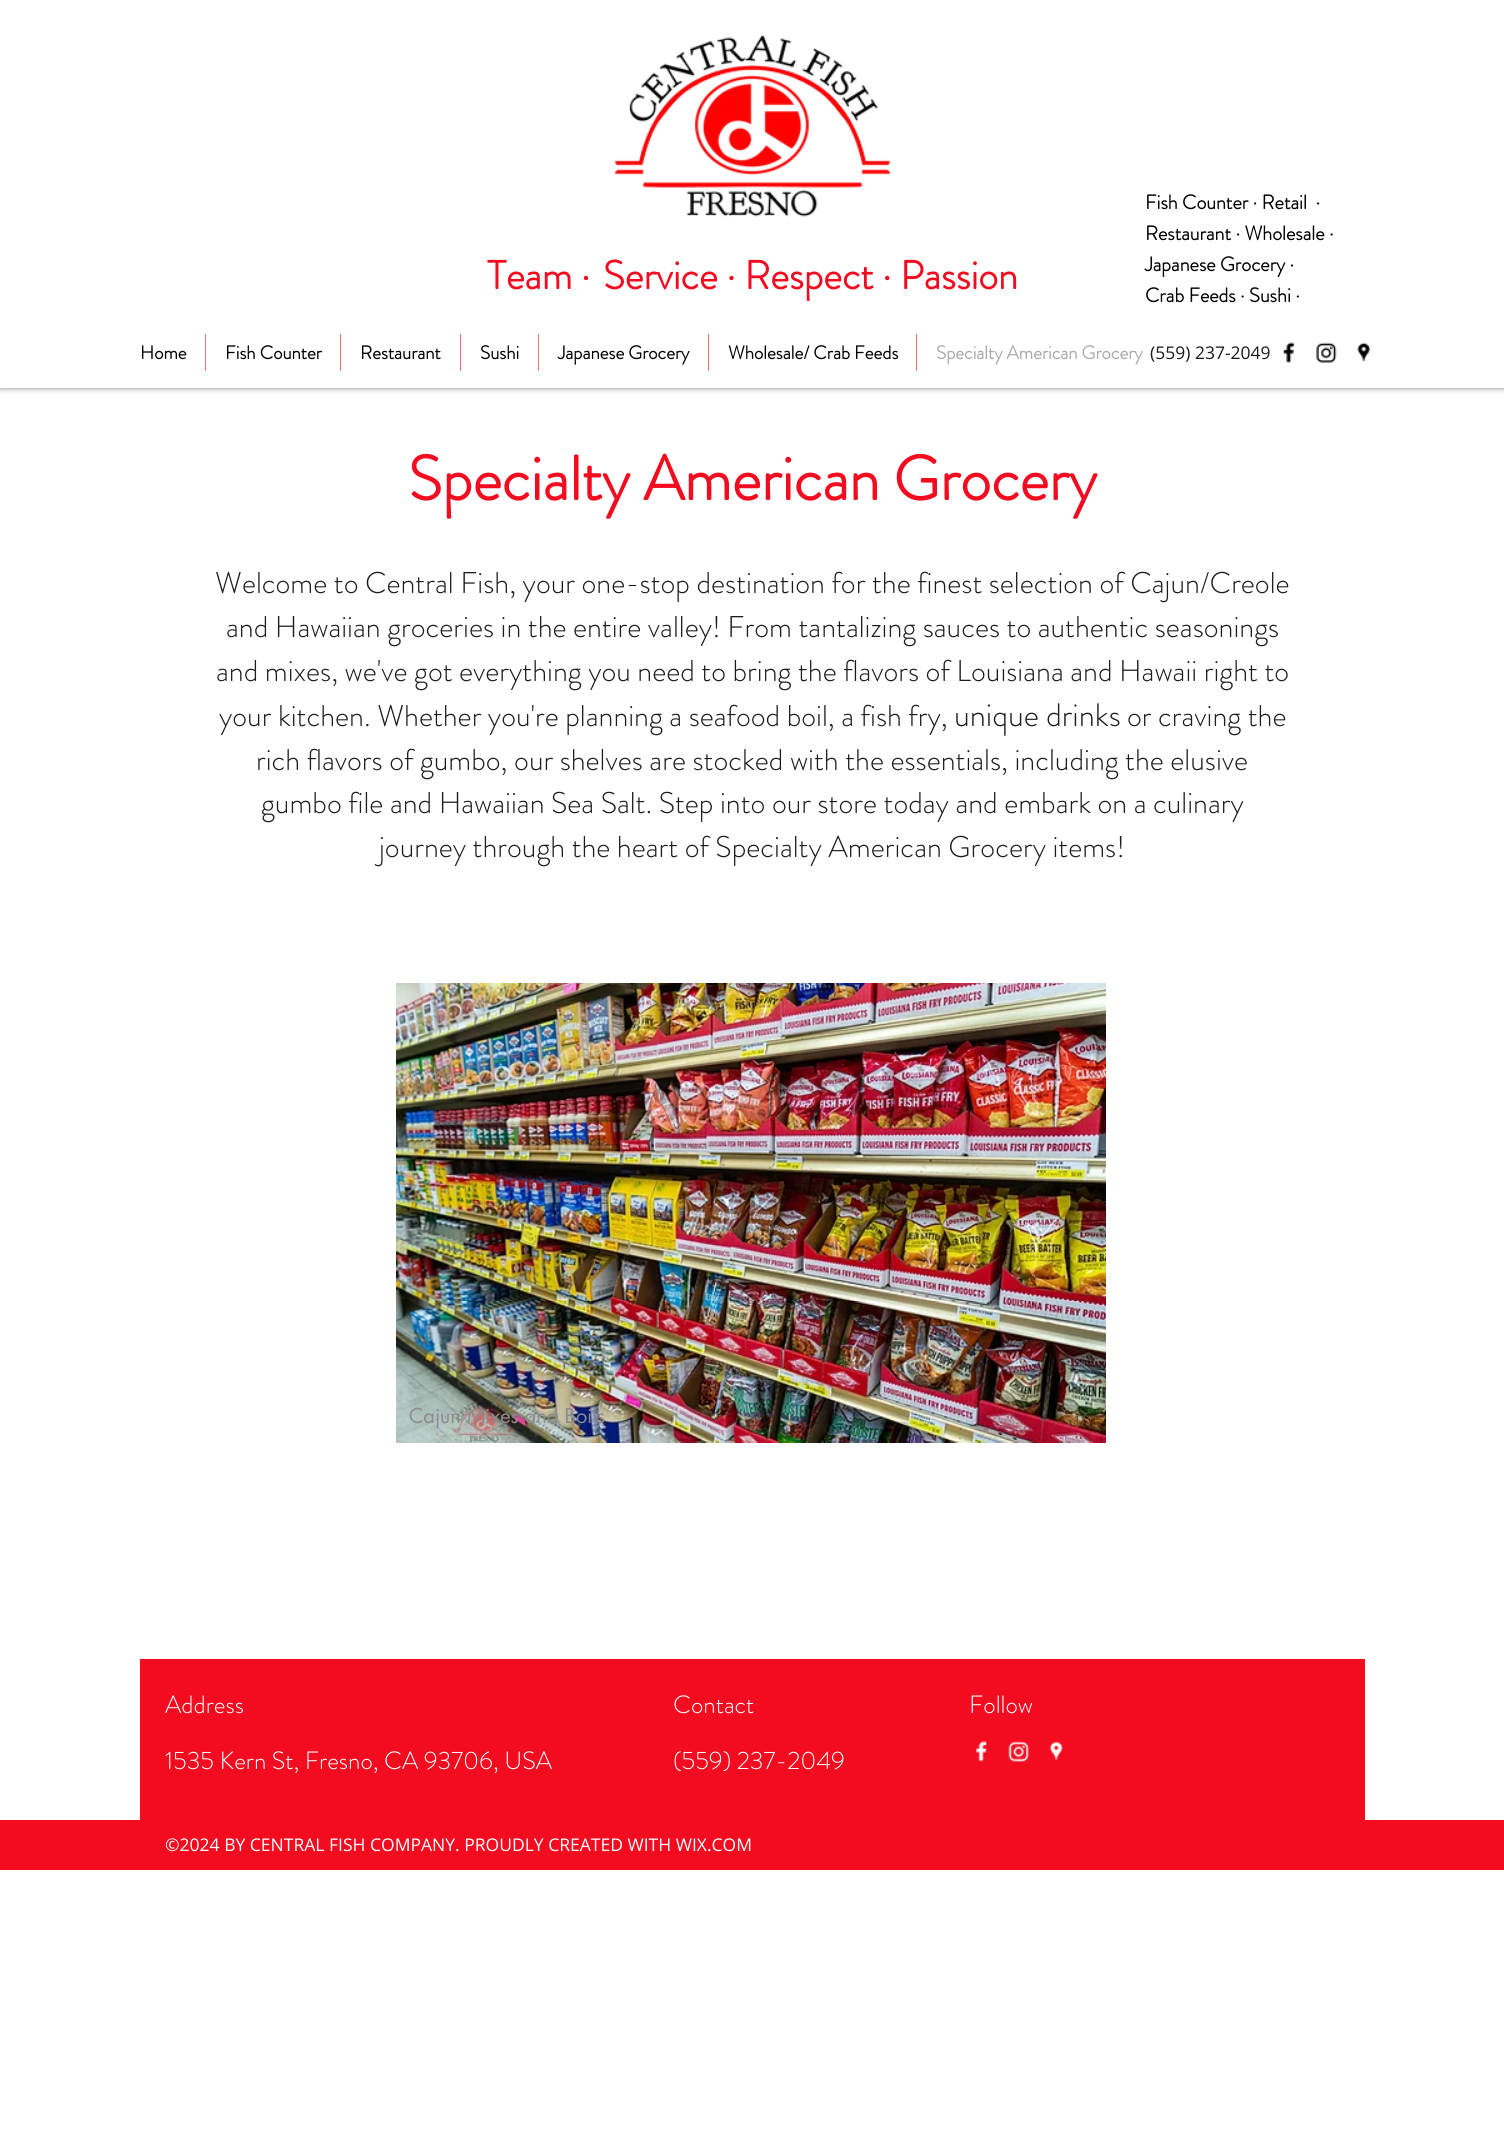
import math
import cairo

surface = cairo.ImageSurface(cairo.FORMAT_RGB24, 1504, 2152)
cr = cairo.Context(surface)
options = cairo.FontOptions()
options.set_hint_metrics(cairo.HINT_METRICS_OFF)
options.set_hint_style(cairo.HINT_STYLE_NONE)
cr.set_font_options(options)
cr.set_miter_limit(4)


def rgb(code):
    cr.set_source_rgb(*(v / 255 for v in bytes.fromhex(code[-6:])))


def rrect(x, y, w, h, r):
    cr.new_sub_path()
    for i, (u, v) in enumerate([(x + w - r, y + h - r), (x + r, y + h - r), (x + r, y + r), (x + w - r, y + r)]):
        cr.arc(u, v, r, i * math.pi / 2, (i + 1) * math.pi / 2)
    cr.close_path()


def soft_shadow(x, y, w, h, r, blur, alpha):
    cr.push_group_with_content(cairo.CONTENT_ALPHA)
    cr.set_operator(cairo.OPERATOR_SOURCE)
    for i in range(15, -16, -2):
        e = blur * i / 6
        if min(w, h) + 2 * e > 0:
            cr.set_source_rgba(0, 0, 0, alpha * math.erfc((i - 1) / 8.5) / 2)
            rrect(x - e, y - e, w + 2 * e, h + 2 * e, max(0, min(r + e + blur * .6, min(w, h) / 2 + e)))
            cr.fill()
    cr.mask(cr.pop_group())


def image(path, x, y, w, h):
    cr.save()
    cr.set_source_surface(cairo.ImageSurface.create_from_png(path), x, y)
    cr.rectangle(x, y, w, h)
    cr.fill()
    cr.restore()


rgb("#ffffff")
cr.paint()
rgb("#000000")
soft_shadow(0, 0, 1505, 388, 0, 3, 0.5)
rgb("#ffffff")
cr.rectangle(0, 0, 1504, 388)
cr.fill()
image("img/1.png", 614, 35, 277, 182)
for x, y, w, h, color in [
    (205, 334, 1, 37, "#f8707b"),
    (340, 334, 1, 37, "#f8707b"),
    (460, 334, 1, 37, "#f8707b"),
    (538, 334, 1, 37, "#f8707b"),
    (708, 334, 1, 37, "#f8707b"),
    (916, 334, 1, 37, "#f8707b"),
]:
    rgb(color)
    cr.rectangle(x, y, w, h)
    cr.fill()
image("img/2.png", 1283, 342, 12, 21)
image("img/3.png", 1316, 342, 21, 21)
image("img/4.png", 1357, 342, 14, 20)
image("img/5.png", 396, 983, 710, 460)
rgb("#f30c20")
cr.rectangle(140, 1659, 1225, 161)
cr.fill()
image("img/6.png", 976, 1741, 11, 21)
image("img/7.png", 1008, 1741, 21, 21)
image("img/8.png", 1049, 1741, 14, 20)
cr.rectangle(0, 1820, 1504, 50)
cr.fill()
cr.select_font_face("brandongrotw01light", cairo.FONT_SLANT_NORMAL, cairo.FONT_WEIGHT_BOLD)
cr.set_font_size(40)
cr.move_to(487, 289)
cr.show_text("Team ·")
cr.move_to(603, 289)
cr.show_text("Service · Respect · Passion")
cr.set_font_size(20)
rgb("#000000")
for x, y, s in [
    (1145, 209, "Fish Counter · Retail  ·"),
    (1145, 240, "Restaurant · Wholesale ·"),
    (1145, 271, "Japanese Grocery ·"),
    (1145, 302, "Crab Feeds · Sushi ·"),
]:
    cr.move_to(x, y)
    cr.show_text(s)
cr.set_font_size(18.75)
for x, y, s in [
    (140, 359, "Home"),
    (225, 359, "Fish Counter"),
    (360, 359, "Restaurant"),
    (480, 359, "Sushi"),
    (558, 359, "Japanese Grocery"),
    (728, 359, "Wholesale/ Crab Feeds"),
]:
    cr.move_to(x, y)
    cr.show_text(s)
rgb("#aaaaaa")
cr.move_to(936, 359)
cr.show_text("Specialty American Grocery")
cr.select_font_face("Open Sans")
cr.set_font_size(17.5)
rgb("#1c1c1c")
cr.move_to(1150, 359)
cr.show_text("(559) 237-2049")
cr.select_font_face("brandongrotw01light", cairo.FONT_SLANT_NORMAL, cairo.FONT_WEIGHT_BOLD)
cr.set_font_size(62.5)
rgb("#f30c20")
cr.move_to(408, 500)
cr.show_text("Specialty American Grocery")
cr.select_font_face("brandongrotw01light Light")
cr.set_font_size(30)
rgb("#1c1c1c")
for x, y, s in [
    (215, 593, "Welcome to Central Fish, your one-stop destination for the finest selection of Cajun/Creole"),
    (226, 637, "and Hawaiian groceries in the entire valley! From tantalizing sauces to authentic seasonings"),
    (216, 681, "and mixes, we've got everything you need to bring the flavors of Louisiana and Hawaii right to"),
    (219, 726, "your kitchen. Whether you're planning a seafood boil, a fish fry,"),
]:
    cr.move_to(x, y)
    cr.show_text(s)
cr.set_font_size(32.5)
cr.move_to(954, 726)
cr.show_text("unique drinks")
cr.set_font_size(30)
for x, y, s in [
    (1127, 726, "or craving the"),
    (256, 770, "rich flavors of gumbo, our shelves are stocked with the essentials, including the elusive"),
    (261, 813, "gumbo file and Hawaiian Sea Salt. Step into our store today and embark on a culinary"),
    (379, 857, "journey through the heart of Specialty American Grocery items!"),
]:
    cr.move_to(x, y)
    cr.show_text(s)
cr.select_font_face("futura")
cr.set_font_size(20)
rgb("#8e8b8d")
cr.move_to(409, 1423)
cr.show_text("Cajun Mixes and Boils")
cr.select_font_face("Liberation Sans")
cr.set_font_size(15)
rgb("#6f4a2a")
cr.move_to(1073, 1426)
cr.show_text("1/7")
cr.select_font_face("brandongrotw01light Light")
cr.set_font_size(25)
rgb("#ffffff")
for x, y, s in [
    (165, 1713, "Address"),
    (673, 1713, "Contact"),
    (969, 1713, "Follow"),
    (165, 1769, "1535 Kern St, Fresno, CA 93706, USA"),
    (673, 1769, "(559) 237-2049"),
]:
    cr.move_to(x, y)
    cr.show_text(s)
cr.select_font_face("Open Sans")
cr.set_font_size(17.5)
cr.move_to(165, 1851)
cr.show_text("©2024 BY CENTRAL FISH COMPANY. PROUDLY CREATED WITH WIX.COM")
surface.write_to_png("page.png")
